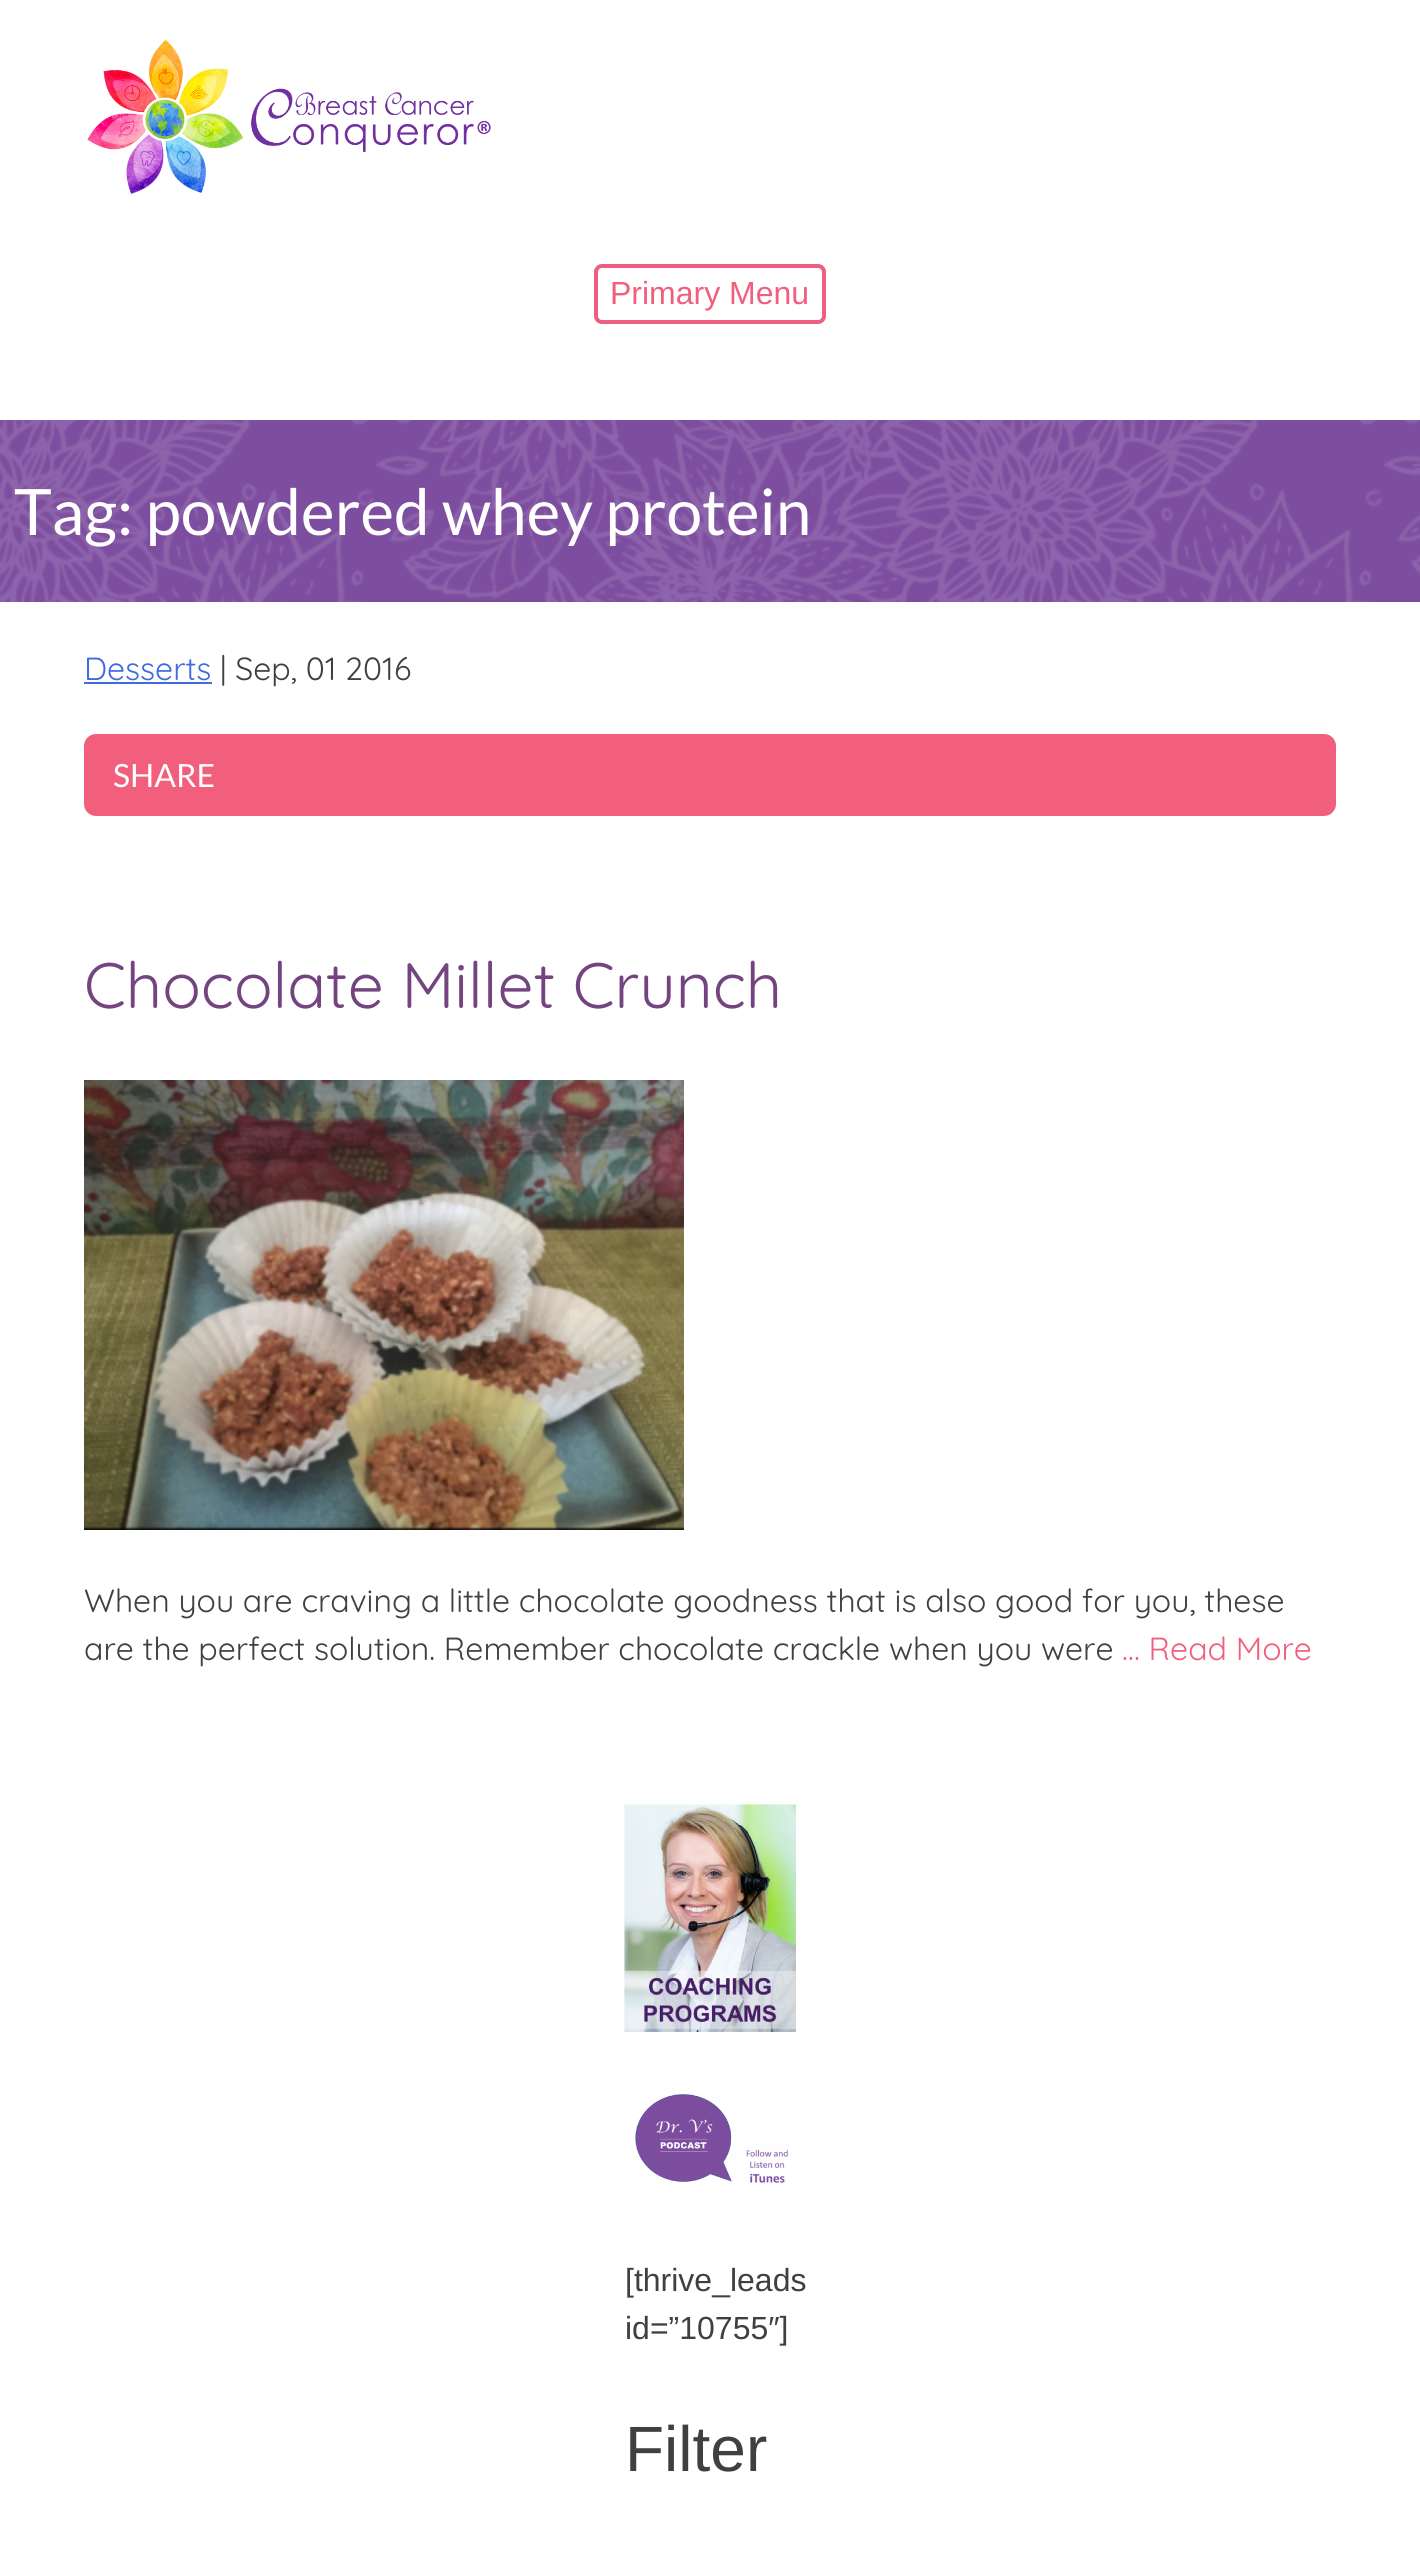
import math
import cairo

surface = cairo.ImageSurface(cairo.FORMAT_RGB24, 1420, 2550)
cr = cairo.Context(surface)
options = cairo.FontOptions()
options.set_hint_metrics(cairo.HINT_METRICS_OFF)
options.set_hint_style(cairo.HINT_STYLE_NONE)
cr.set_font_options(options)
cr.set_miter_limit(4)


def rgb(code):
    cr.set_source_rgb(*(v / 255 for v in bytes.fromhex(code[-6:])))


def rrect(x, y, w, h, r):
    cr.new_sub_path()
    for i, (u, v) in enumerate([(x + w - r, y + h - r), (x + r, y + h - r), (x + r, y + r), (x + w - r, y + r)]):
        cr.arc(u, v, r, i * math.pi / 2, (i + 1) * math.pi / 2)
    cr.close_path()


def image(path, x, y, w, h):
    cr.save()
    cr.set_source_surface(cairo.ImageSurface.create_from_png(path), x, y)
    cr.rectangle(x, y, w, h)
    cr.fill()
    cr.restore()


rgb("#ffffff")
cr.paint()
image("img/1.png", 87, 39, 404, 155)
rrect(596, 266, 228, 56, 6)
rgb("#ee5e80")
cr.set_line_width(4)
cr.stroke()
rgb("#7d4e9f")
cr.rectangle(0, 420, 1420, 182)
cr.fill()
image("img/2.png", 0, 420, 1420, 182)
rgb("#4169e1")
cr.rectangle(84, 682, 128, 2)
cr.fill()
rgb("#f15f7d")
rrect(86, 736, 1248, 78, 10)
cr.fill_preserve()
cr.stroke()
image("img/3.png", 84, 1080, 600, 450)
image("img/4.png", 624, 1804, 172, 228)
image("img/5.png", 635, 2094, 153, 89)
cr.select_font_face("Liberation Sans")
cr.set_font_size(32)
cr.move_to(610, 304)
cr.show_text("Primary Menu")
cr.select_font_face("Lato")
cr.set_font_size(64)
rgb("#ffffff")
cr.move_to(14, 535)
cr.show_text("Tag: powdered whey protein")
cr.select_font_face("Quicksand")
cr.set_font_size(32)
rgb("#4169e1")
cr.move_to(84, 680)
cr.show_text("Desserts")
rgb("#404040")
cr.move_to(220, 680)
cr.show_text("| Sep, 01 2016")
cr.select_font_face("Lato")
rgb("#ffffff")
cr.move_to(113, 787)
cr.show_text("SHARE")
cr.select_font_face("Quicksand")
cr.set_font_size(64)
rgb("#744481")
cr.move_to(84, 1008)
cr.show_text("Chocolate Millet Crunch")
cr.set_font_size(32)
rgb("#404040")
cr.move_to(84, 1612)
cr.show_text("When you are craving a little chocolate goodness that is also good for you, these")
cr.move_to(84, 1660)
cr.show_text("are the perfect solution. Remember chocolate crackle when you were")
rgb("#f15f7d")
cr.move_to(1122, 1660)
cr.show_text("… Read More")
cr.select_font_face("Liberation Sans")
rgb("#404040")
cr.move_to(625, 2291)
cr.show_text("[thrive_leads")
cr.move_to(625, 2339)
cr.show_text("id=”10755″]")
cr.set_font_size(64)
cr.move_to(625, 2471)
cr.show_text("Filter")
surface.write_to_png("page.png")
